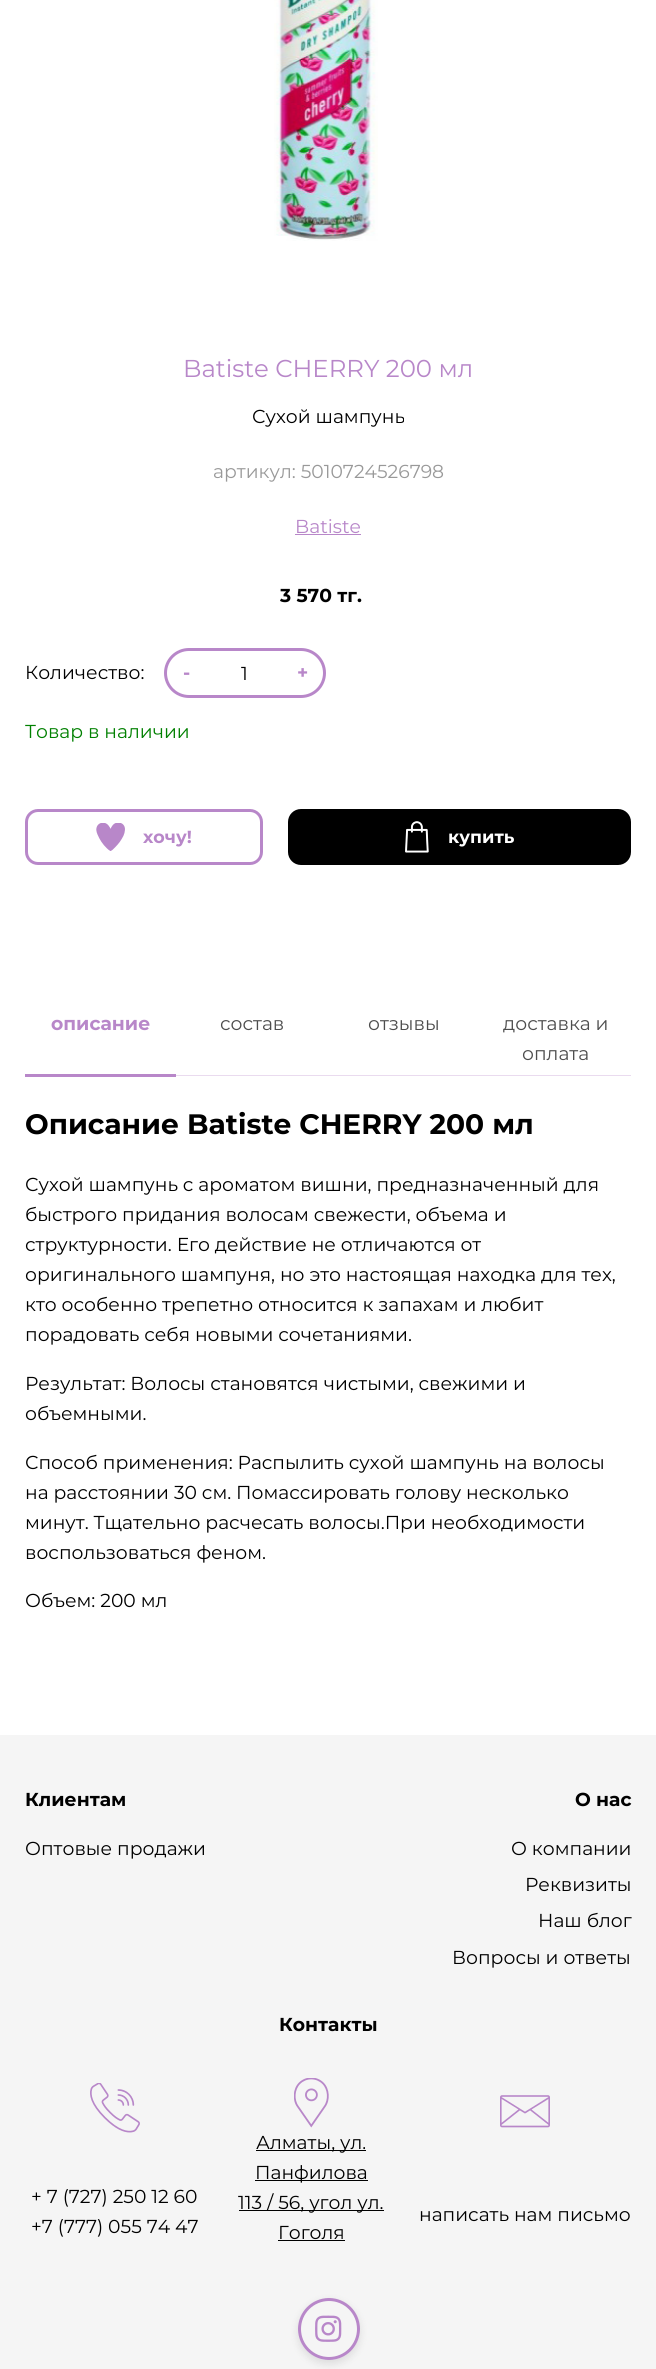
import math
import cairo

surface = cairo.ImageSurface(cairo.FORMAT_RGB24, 656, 2369)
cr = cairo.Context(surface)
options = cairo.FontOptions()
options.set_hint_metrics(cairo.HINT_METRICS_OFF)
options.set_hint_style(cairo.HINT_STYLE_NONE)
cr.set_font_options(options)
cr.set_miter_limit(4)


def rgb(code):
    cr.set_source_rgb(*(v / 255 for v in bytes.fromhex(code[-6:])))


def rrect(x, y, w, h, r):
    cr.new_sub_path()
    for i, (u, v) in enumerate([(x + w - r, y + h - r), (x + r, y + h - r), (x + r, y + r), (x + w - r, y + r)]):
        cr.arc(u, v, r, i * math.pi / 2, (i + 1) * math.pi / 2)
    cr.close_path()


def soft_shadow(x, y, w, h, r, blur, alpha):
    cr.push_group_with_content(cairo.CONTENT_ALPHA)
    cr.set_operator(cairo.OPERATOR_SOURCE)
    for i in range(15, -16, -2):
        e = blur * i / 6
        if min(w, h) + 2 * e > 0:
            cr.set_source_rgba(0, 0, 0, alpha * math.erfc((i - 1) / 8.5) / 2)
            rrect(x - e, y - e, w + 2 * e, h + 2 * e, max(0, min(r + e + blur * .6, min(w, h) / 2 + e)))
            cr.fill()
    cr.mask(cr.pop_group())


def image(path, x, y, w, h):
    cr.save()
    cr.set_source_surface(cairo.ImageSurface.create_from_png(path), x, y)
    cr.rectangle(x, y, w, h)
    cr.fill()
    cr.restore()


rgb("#ffffff")
cr.paint()
image("img/1.png", 274, 0, 104, 241)
rgb("#b887c9")
cr.rectangle(295, 534, 66, 1)
cr.fill()
rrect(165.5, 649.5, 159, 47, 23.5)
cr.set_line_width(3)
cr.stroke()
rrect(26.5, 810.5, 235, 53, 11.5)
cr.stroke()
image("img/2.png", 96, 823, 29, 28)
rgb("#000000")
rrect(289.5, 810.5, 340, 53, 11.5)
cr.fill_preserve()
cr.stroke()
image("img/3.png", 405, 821, 24, 32)
for x, y, w, h, color in [
    (176, 1075, 455, 1, "#eadbef"),
    (25, 1074, 151, 3, "#b887c9"),
    (0, 1735, 656, 634, "#f5f5f5"),
]:
    rgb(color)
    cr.rectangle(x, y, w, h)
    cr.fill()
image("img/4.png", 90, 2083, 50, 50)
image("img/5.png", 294, 2078, 35, 50)
for x, y, w, h, color in [
    (256, 2150, 110, 1, "#000000"),
    (255, 2180, 113, 1, "#000000"),
    (239, 2210, 145, 1, "#000000"),
    (278, 2240, 67, 1, "#000000"),
]:
    rgb(color)
    cr.rectangle(x, y, w, h)
    cr.fill()
image("img/6.png", 500, 2095, 50, 33)
cr.save()
cr.set_fill_rule(cairo.FILL_RULE_EVEN_ODD)
cr.new_path()
cr.move_to(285, 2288)
cr.line_to(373, 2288)
cr.line_to(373, 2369)
cr.line_to(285, 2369)
cr.close_path()
cr.move_to(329, 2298)
cr.curve_to(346, 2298, 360, 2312, 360, 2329)
cr.curve_to(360, 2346, 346, 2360, 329, 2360)
cr.curve_to(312, 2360, 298, 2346, 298, 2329)
cr.curve_to(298, 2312, 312, 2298, 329, 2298)
cr.close_path()
cr.clip()
rgb("#000000")
soft_shadow(298, 2301, 62, 63, 31, 4, 0.1)
cr.restore()
cr.arc(329, 2329, 29.5, 0, 2 * math.pi)
rgb("#b887c9")
cr.stroke()
image("img/7.png", 315, 2315, 27, 27)
cr.select_font_face("Montserrat")
cr.set_font_size(24.4)
cr.move_to(183, 377)
cr.show_text("Batiste CHERRY 200 мл")
cr.set_font_size(18.75)
rgb("#000000")
cr.move_to(252, 423)
cr.show_text("Сухой шампунь")
rgb("#999999")
cr.move_to(213, 478)
cr.show_text("артикул: 5010724526798")
rgb("#b887c9")
cr.move_to(295, 533)
cr.show_text("Batiste")
cr.select_font_face("Montserrat", cairo.FONT_SLANT_NORMAL, cairo.FONT_WEIGHT_BOLD)
rgb("#000000")
cr.move_to(280, 602)
cr.show_text("3 570 тг.")
cr.select_font_face("Montserrat")
cr.move_to(25, 679)
cr.show_text("Количество:")
cr.select_font_face("Montserrat", cairo.FONT_SLANT_NORMAL, cairo.FONT_WEIGHT_BOLD)
rgb("#b887c9")
cr.move_to(183, 679)
cr.show_text("-")
cr.select_font_face("Montserrat")
rgb("#000000")
cr.move_to(241, 680)
cr.show_text("1")
cr.select_font_face("Montserrat", cairo.FONT_SLANT_NORMAL, cairo.FONT_WEIGHT_BOLD)
rgb("#b887c9")
cr.move_to(297, 679)
cr.show_text("+")
cr.select_font_face("Montserrat")
rgb("#008000")
cr.move_to(25, 738)
cr.show_text("Товар в наличии")
cr.select_font_face("Montserrat", cairo.FONT_SLANT_NORMAL, cairo.FONT_WEIGHT_BOLD)
cr.set_font_size(17.5)
rgb("#b887c9")
cr.move_to(143, 843)
cr.show_text("хочу!")
rgb("#ffffff")
cr.move_to(448, 843)
cr.show_text("купить")
cr.set_font_size(18.75)
rgb("#b887c9")
cr.move_to(51, 1030)
cr.show_text("описание")
cr.select_font_face("Montserrat")
rgb("#4d4d4d")
for x, y, s in [
    (220, 1030, "состав"),
    (368, 1030, "отзывы"),
    (503, 1030, "доставка и"),
    (522, 1060, "оплата"),
]:
    cr.move_to(x, y)
    cr.show_text(s)
cr.select_font_face("Montserrat", cairo.FONT_SLANT_NORMAL, cairo.FONT_WEIGHT_BOLD)
cr.set_font_size(28.1)
rgb("#000000")
cr.move_to(25, 1134)
cr.show_text("Описание Batiste CHERRY 200 мл")
cr.select_font_face("Montserrat")
cr.set_font_size(18.75)
for x, y, s in [
    (25, 1191, "Сухой шампунь с ароматом вишни, предназначенный для"),
    (25, 1221, "быстрого придания волосам свежести, объема и"),
    (25, 1251, "структурности. Его действие не отличаются от"),
    (25, 1281, "оригинального шампуня, но это настоящая находка для тех,"),
    (25, 1311, "кто особенно трепетно относится к запахам и любит"),
    (25, 1341, "порадовать себя новыми сочетаниями."),
    (25, 1390, "Результат: Волосы становятся чистыми, свежими и"),
    (25, 1420, "объемными."),
    (25, 1469, "Способ применения: Распылить сухой шампунь на волосы"),
    (25, 1499, "на расстоянии 30 см. Помассировать голову несколько"),
    (25, 1529, "минут. Тщательно расчесать волосы.При необходимости"),
    (25, 1559, "воспользоваться феном."),
    (25, 1607, "Объем: 200 мл"),
]:
    cr.move_to(x, y)
    cr.show_text(s)
cr.select_font_face("Montserrat", cairo.FONT_SLANT_NORMAL, cairo.FONT_WEIGHT_BOLD)
cr.move_to(25, 1806)
cr.show_text("Клиентам")
cr.select_font_face("Montserrat")
cr.move_to(25, 1855)
cr.show_text("Оптовые продажи")
cr.select_font_face("Montserrat", cairo.FONT_SLANT_NORMAL, cairo.FONT_WEIGHT_BOLD)
cr.move_to(575, 1806)
cr.show_text("О нас")
cr.select_font_face("Montserrat")
for x, y, s in [
    (511, 1855, "О компании"),
    (525, 1891, "Реквизиты"),
    (538, 1927, "Наш блог"),
    (452, 1964, "Вопросы и ответы"),
]:
    cr.move_to(x, y)
    cr.show_text(s)
cr.select_font_face("Montserrat", cairo.FONT_SLANT_NORMAL, cairo.FONT_WEIGHT_BOLD)
cr.move_to(279, 2031)
cr.show_text("Контакты")
cr.select_font_face("Montserrat")
for x, y, s in [
    (31, 2203, "+ 7 (727) 250 12 60"),
    (31, 2233, "+7 (777) 055 74 47"),
    (256, 2149, "Алматы, ул."),
    (255, 2179, "Панфилова"),
    (238, 2209, "113 / 56, угол ул."),
    (278, 2239, "Гоголя"),
    (419, 2221, "написать нам письмо"),
]:
    cr.move_to(x, y)
    cr.show_text(s)
surface.write_to_png("page.png")
